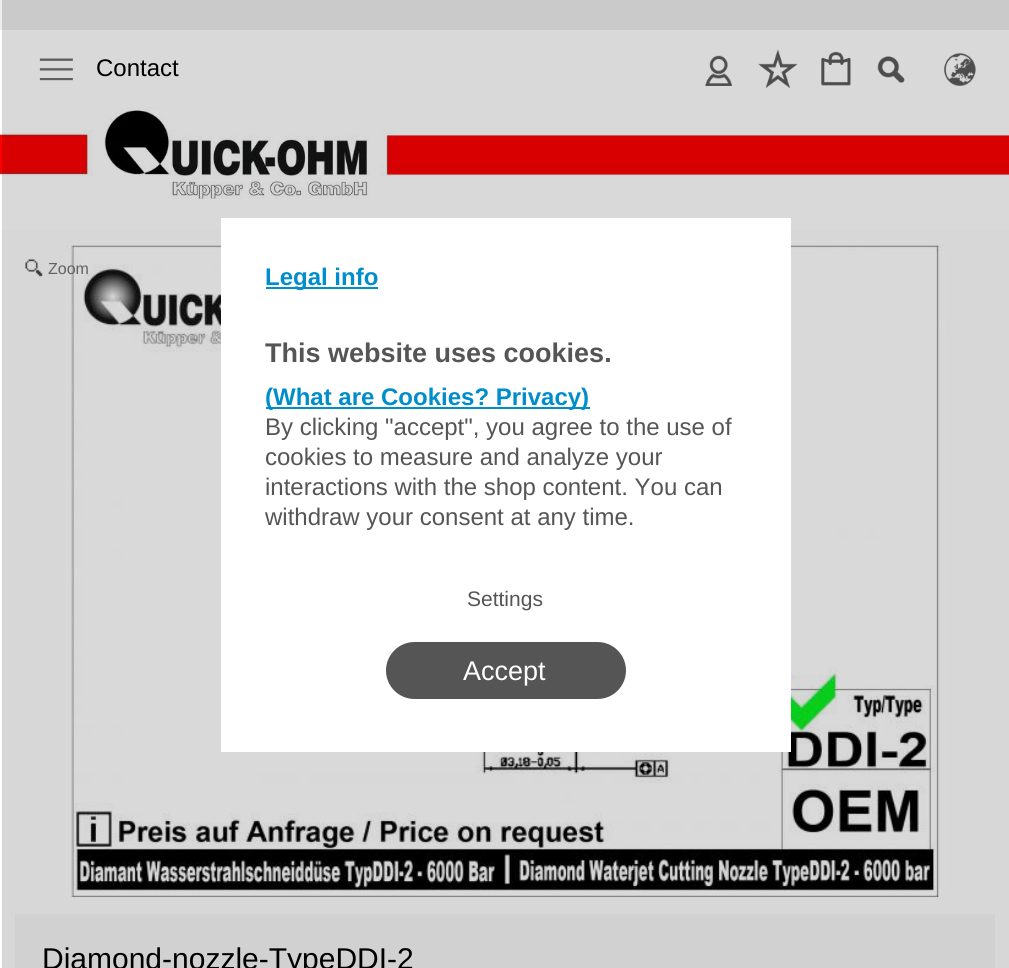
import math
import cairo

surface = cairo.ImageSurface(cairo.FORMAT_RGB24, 1009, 968)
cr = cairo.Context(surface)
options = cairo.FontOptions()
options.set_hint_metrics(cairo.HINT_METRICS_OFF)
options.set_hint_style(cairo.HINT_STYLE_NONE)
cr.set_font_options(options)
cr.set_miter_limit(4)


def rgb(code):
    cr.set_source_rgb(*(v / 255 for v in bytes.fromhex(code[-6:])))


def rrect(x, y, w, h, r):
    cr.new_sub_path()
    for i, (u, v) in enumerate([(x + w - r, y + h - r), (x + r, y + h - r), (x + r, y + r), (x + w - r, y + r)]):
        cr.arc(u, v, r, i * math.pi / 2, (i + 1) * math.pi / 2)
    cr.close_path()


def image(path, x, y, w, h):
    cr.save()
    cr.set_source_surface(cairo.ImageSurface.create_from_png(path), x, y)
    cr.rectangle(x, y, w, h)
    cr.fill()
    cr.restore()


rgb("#eeeeee")
cr.paint()
for x, y, w, h, color in [
    (2, 0, 1007, 30, "#cacaca"),
    (0, 30, 2, 77, "#ffffff"),
    (2, 30, 1007, 77, "#d9d9d9"),
]:
    rgb(color)
    cr.rectangle(x, y, w, h)
    cr.fill()
image("img/1.png", 39, 58, 34, 23)
image("img/2.png", 705, 55, 27, 31)
image("img/3.png", 758, 49, 40, 39)
image("img/4.png", 821, 51, 30, 35)
image("img/5.png", 877, 56, 28, 27)
image("img/6.png", 944, 53, 32, 33)
rgb("#ffffff")
cr.rectangle(0, 199, 2, 31)
cr.fill()
rgb("#d9d9d9")
cr.rectangle(2, 199, 1007, 31)
cr.fill()
image("img/7.png", 0, 107, 1009, 92)
rgb("#fdfdfd")
cr.rectangle(0, 230, 2, 738)
cr.fill()
rgb("#d7d7d7")
cr.rectangle(2, 230, 1007, 738)
cr.fill()
image("img/8.png", 66, 244, 880, 653)
image("img/9.png", 25, 259, 18, 18)
for x, y, w, h, color in [
    (15, 914, 980, 54, "#d1d1d1"),
    (221, 218, 570, 534, "#ffffff"),
    (266, 287, 112, 2, "#008dcb"),
    (266, 407, 324, 2, "#008dcb"),
]:
    rgb(color)
    cr.rectangle(x, y, w, h)
    cr.fill()
rgb("#555555")
rrect(386, 642, 240, 57, 28.5)
cr.fill()
cr.select_font_face("Liberation Sans")
cr.set_font_size(24)
rgb("#000000")
cr.move_to(96, 76)
cr.show_text("Contact")
cr.set_font_size(16)
rgb("#616161")
cr.move_to(48, 274)
cr.show_text("Zoom")
cr.set_font_size(30)
rgb("#000000")
cr.move_to(42, 969)
cr.show_text("Diamond-nozzle-TypeDDI-2")
cr.select_font_face("Liberation Sans", cairo.FONT_SLANT_NORMAL, cairo.FONT_WEIGHT_BOLD)
cr.set_font_size(24)
rgb("#008dcb")
cr.move_to(265, 285)
cr.show_text("Legal info")
cr.set_font_size(27)
rgb("#555555")
cr.move_to(265, 362)
cr.show_text("This website uses cookies.")
cr.set_font_size(24)
rgb("#008dcb")
cr.move_to(265, 405)
cr.show_text("(What are Cookies? Privacy)")
cr.select_font_face("Liberation Sans")
rgb("#555555")
for x, y, s in [
    (265, 435, "By clicking \"accept\", you agree to the use of"),
    (265, 465, "cookies to measure and analyze your"),
    (265, 495, "interactions with the shop content. You can"),
    (265, 525, "withdraw your consent at any time."),
]:
    cr.move_to(x, y)
    cr.show_text(s)
cr.set_font_size(21)
cr.move_to(467, 606)
cr.show_text("Settings")
cr.set_font_size(27)
rgb("#ffffff")
cr.move_to(463, 680)
cr.show_text("Accept")
surface.write_to_png("page.png")
